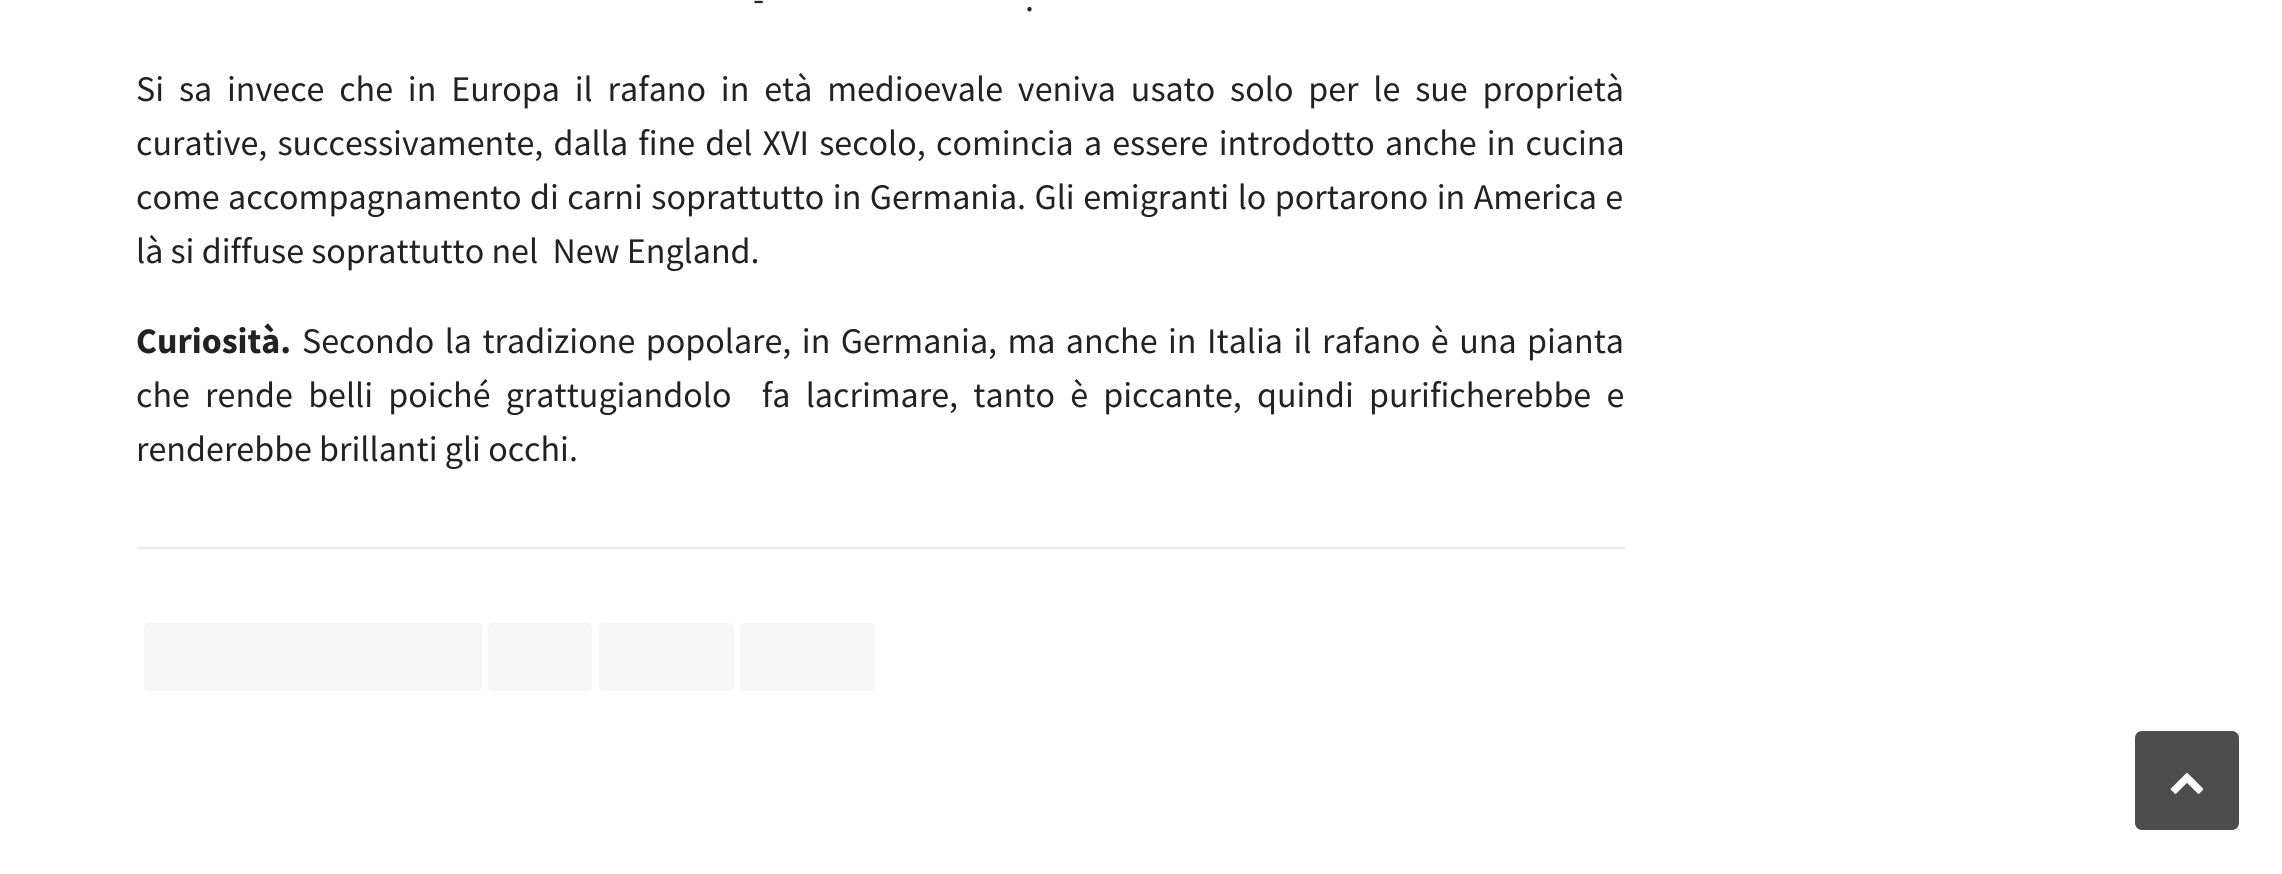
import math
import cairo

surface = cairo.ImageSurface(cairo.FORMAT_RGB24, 2282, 874)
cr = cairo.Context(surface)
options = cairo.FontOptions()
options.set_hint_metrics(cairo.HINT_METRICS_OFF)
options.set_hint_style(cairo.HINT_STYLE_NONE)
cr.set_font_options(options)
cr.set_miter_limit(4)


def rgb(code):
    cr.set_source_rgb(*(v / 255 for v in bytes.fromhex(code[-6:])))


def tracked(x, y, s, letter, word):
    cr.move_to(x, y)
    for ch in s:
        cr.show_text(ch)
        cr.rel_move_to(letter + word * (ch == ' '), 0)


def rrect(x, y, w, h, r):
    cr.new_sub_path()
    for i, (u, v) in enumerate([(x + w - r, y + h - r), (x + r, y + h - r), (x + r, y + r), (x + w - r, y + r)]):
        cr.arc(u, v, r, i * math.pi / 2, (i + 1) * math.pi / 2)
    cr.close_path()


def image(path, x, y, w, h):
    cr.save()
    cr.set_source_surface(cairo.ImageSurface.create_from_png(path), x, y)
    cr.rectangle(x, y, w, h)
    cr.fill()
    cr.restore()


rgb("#ffffff")
cr.paint()
rgb("#eaeaea")
cr.rectangle(137, 547, 1488, 2)
cr.fill()
rgb("#f6f6f6")
rrect(144, 623, 338, 68, 5)
cr.fill()
rrect(488, 623, 104, 68, 5)
cr.fill()
rrect(599, 623, 135, 68, 5)
cr.fill()
rrect(740, 623, 135, 68, 5)
cr.fill()
rgb("#4d4d4d")
rrect(2135, 731, 104, 99, 7)
cr.fill()
image("img/1.png", 2170, 773, 34, 21)
cr.select_font_face("Source Sans Pro")
cr.set_font_size(36)
rgb("#222222")
cr.move_to(753, 11)
cr.show_text("-")
cr.move_to(1025, 11)
cr.show_text(".")
tracked(136, 101, "Si sa invece che in Europa il rafano in età medioevale veniva usato solo per le sue proprietà", 0, 7.6)
tracked(136, 155, "curative, successivamente, dalla fine del XVI secolo, comincia a essere introdotto anche in cucina", 0, 3)
tracked(136, 209, "come accompagnamento di carni soprattutto in Germania. Gli emigranti lo portarono in America e", 0, 1.25)
cr.move_to(136, 263)
cr.show_text("là si diffuse soprattutto nel  New England.")
cr.select_font_face("Source Sans Pro", cairo.FONT_SLANT_NORMAL, cairo.FONT_WEIGHT_BOLD)
cr.move_to(136, 353)
cr.show_text("Curiosità.")
cr.select_font_face("Source Sans Pro")
tracked(302, 353, "Secondo la tradizione popolare, in Germania, ma anche in Italia il rafano è una pianta", 0, 3.25)
tracked(136, 407, "che rende belli poiché grattugiandolo  fa lacrimare, tanto è piccante, quindi purificherebbe e", 0, 8)
cr.move_to(136, 461)
cr.show_text("renderebbe brillanti gli occhi.")
surface.write_to_png("page.png")
